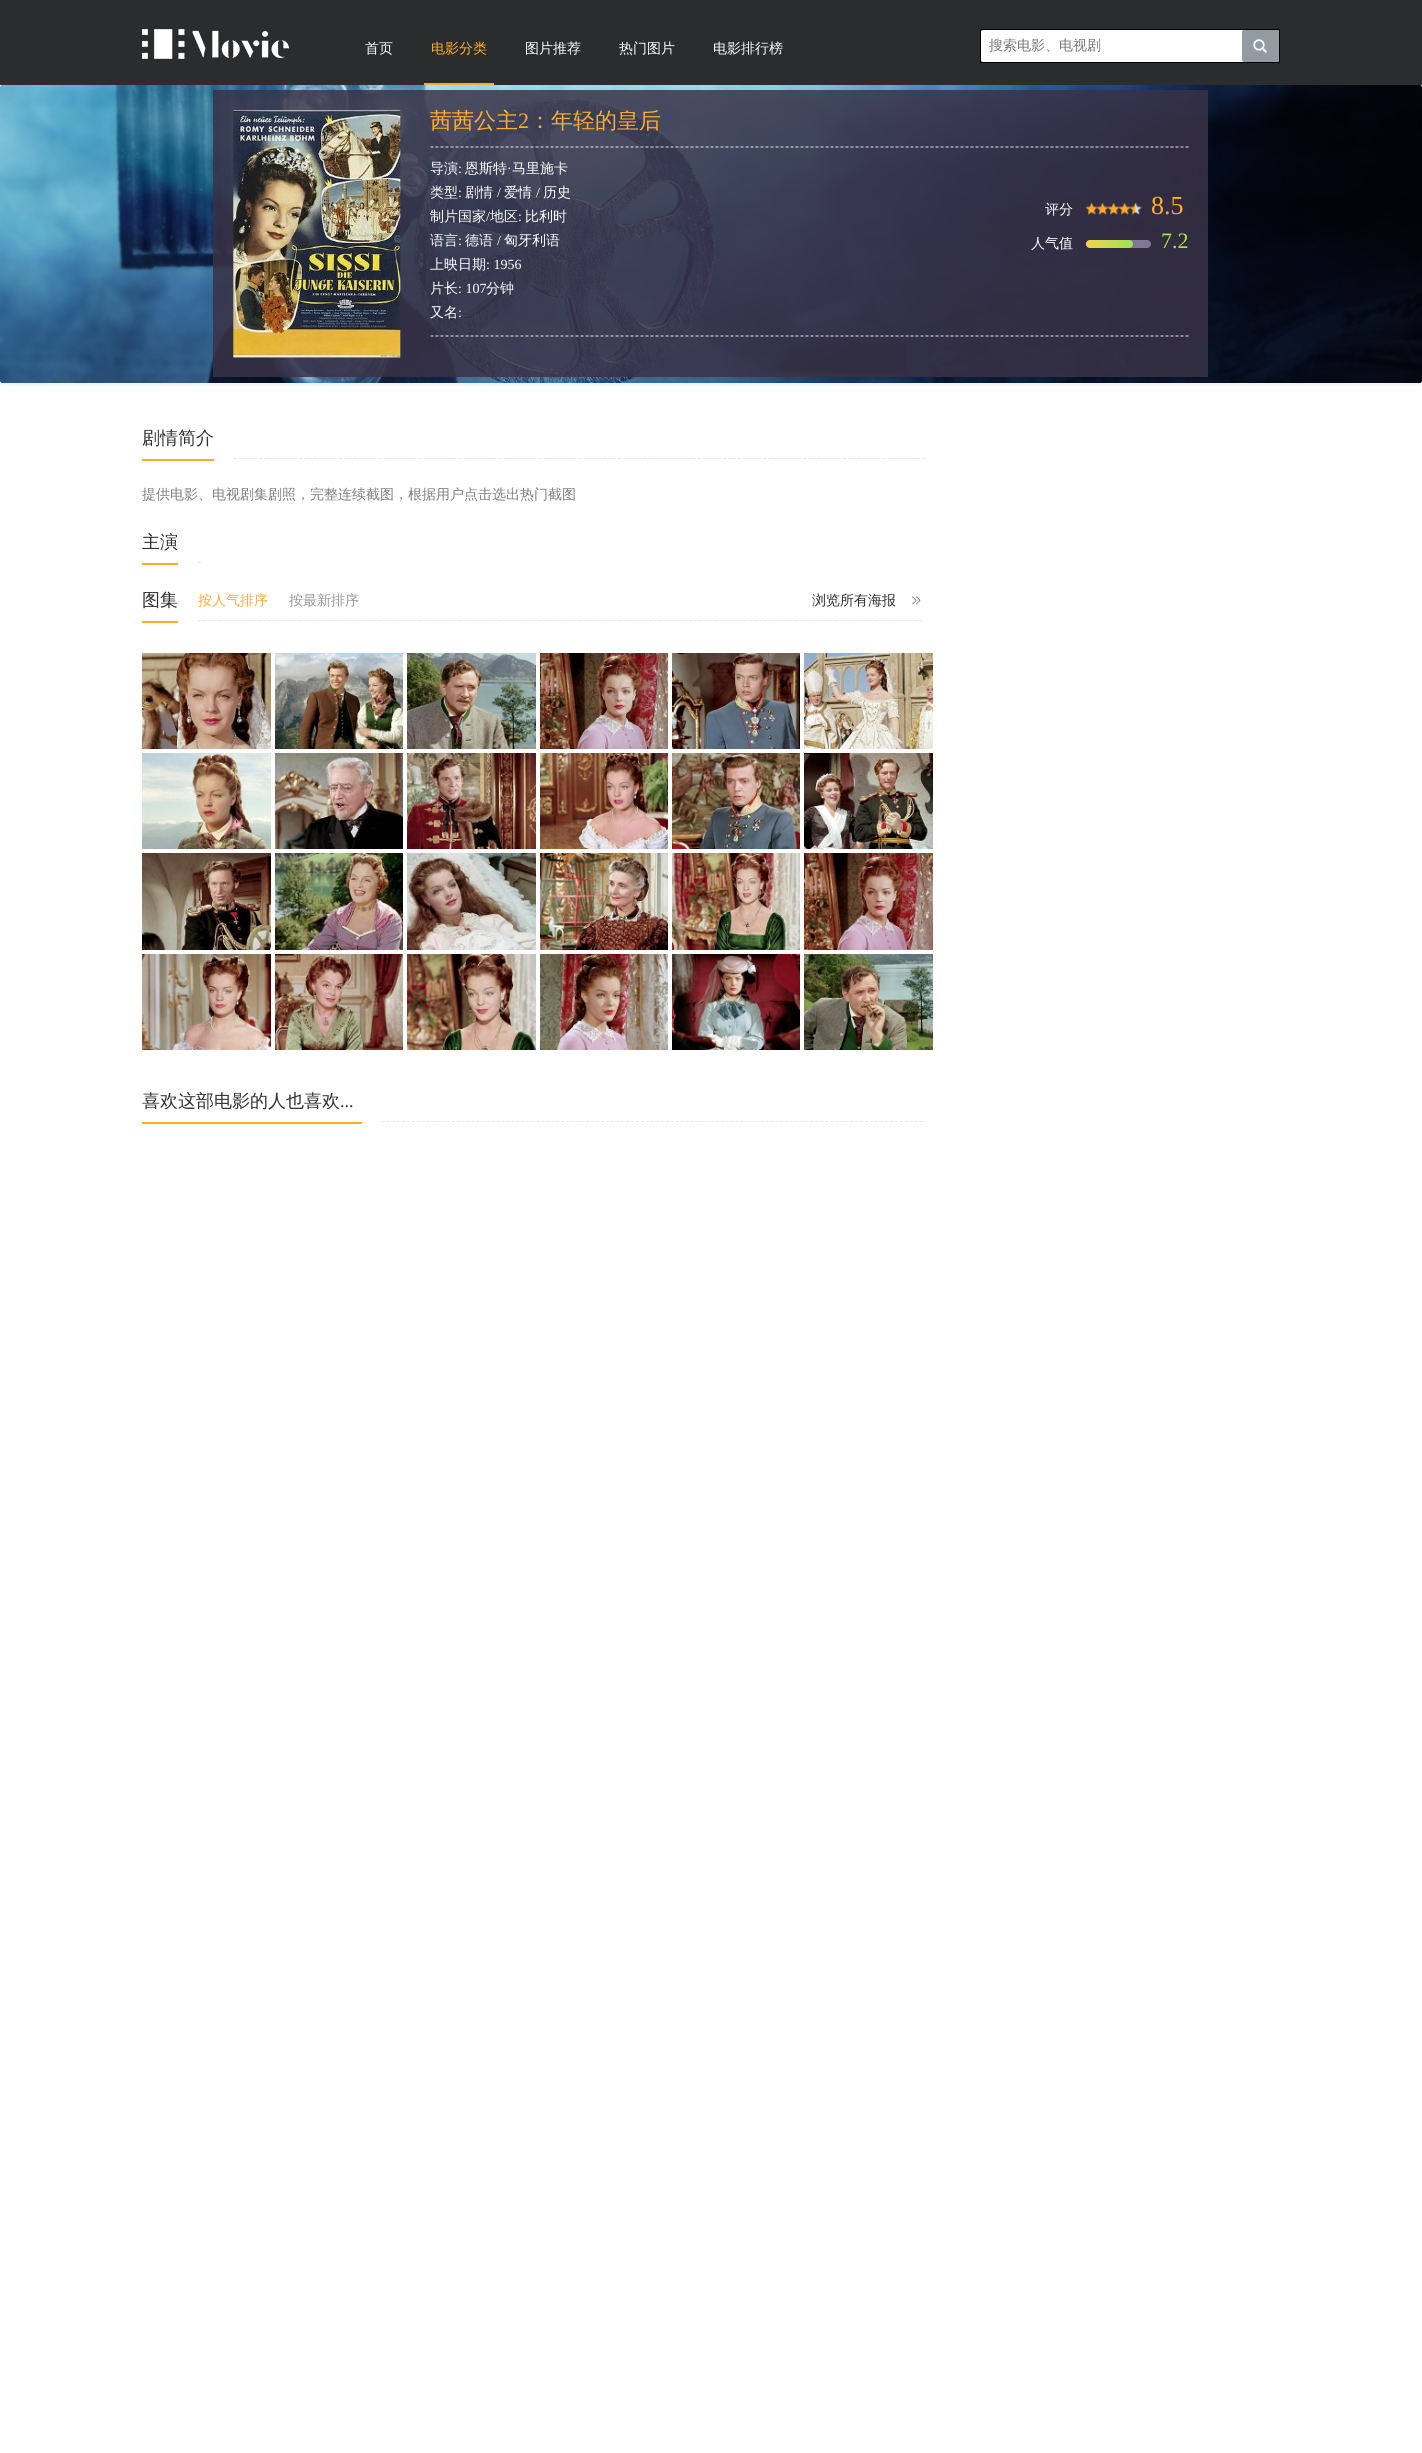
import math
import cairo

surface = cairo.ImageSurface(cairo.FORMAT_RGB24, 1422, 2453)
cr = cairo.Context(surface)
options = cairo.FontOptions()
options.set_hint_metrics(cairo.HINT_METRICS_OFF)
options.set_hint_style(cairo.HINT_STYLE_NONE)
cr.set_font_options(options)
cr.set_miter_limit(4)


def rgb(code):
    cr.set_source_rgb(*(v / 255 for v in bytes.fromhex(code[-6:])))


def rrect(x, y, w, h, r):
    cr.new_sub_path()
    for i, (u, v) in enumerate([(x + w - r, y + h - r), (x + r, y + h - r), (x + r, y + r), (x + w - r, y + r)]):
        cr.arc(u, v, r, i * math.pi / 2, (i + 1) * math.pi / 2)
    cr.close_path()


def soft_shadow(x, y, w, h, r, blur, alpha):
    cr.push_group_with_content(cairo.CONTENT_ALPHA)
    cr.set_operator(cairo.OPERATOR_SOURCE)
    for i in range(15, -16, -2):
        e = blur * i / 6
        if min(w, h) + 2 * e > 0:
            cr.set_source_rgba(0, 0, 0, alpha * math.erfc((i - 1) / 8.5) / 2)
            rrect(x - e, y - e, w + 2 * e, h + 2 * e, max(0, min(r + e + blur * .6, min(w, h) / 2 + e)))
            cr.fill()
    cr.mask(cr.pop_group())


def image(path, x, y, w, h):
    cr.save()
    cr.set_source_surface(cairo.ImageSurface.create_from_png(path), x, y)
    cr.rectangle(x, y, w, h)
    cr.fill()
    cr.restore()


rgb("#ffffff")
cr.paint()
rgb("#2b2c2e")
cr.rectangle(0, 0, 1422, 85)
cr.fill()
image("img/1.png", 142, 29, 147, 30)
rgb("#ffac2d")
cr.rectangle(424, 83, 70, 2)
cr.fill()
cr.rectangle(980.5, 29.5, 299, 33)
rgb("#000000")
cr.set_line_width(1)
cr.stroke()
rgb("#ffffff")
rrect(981, 30, 298, 32, 2)
cr.fill()
rgb("#929ba2")
rrect(1242, 30, 37, 32, 2)
cr.fill()
image("img/2.png", 1253, 38, 14, 15)
rgb("#3f5767")
soft_shadow(0, 86, 1422, 298, 0, 2.5, 0.13)
image("img/3.png", 0, 85, 1422, 298)
cr.set_source_rgba(0.227, 0.196, 0.278, 0.84)
cr.rectangle(213, 90, 995, 287)
cr.fill()
image("img/4.png", 233, 110, 168, 248)
cr.new_path()
cr.move_to(430.5, 147)
cr.line_to(1188.5, 147)
rgb("#e2e7eb")
cr.set_dash([3, 2])
cr.stroke()
cr.new_path()
cr.move_to(430.5, 336)
cr.line_to(1188.5, 336)
cr.stroke()
image("img/5.png", 1086, 203, 56, 12)
rgb("#7f7997")
rrect(1086, 240, 65, 8, 4)
cr.fill()
gradient = cairo.LinearGradient(1086, 244, 1133, 244)
gradient.add_color_stop_rgba(0, 0.965, 0.827, 0.302, 1)
gradient.add_color_stop_rgba(1, 0.62, 0.886, 0.333, 1)
cr.set_source(gradient)
rrect(1086, 240, 47, 8, 4)
cr.fill()
rgb("#ffac2d")
cr.rectangle(142, 459, 72, 2)
cr.fill()
cr.new_path()
cr.move_to(234, 458.5)
cr.line_to(925, 458.5)
rgb("#e2e7eb")
cr.set_dash([3, 1.99])
cr.stroke()
for x, y, w, h, color in [
    (142, 563, 36, 2, "#ffac2d"),
    (198, 562, 3, 1, "#e2e7eb"),
    (142, 621, 36, 2, "#ffac2d"),
]:
    rgb(color)
    cr.rectangle(x, y, w, h)
    cr.fill()
cr.new_path()
cr.move_to(198, 620.5)
cr.line_to(923, 620.5)
rgb("#e2e7eb")
cr.set_dash([3, 2.01])
cr.stroke()
image("img/6.png", 912, 596, 9, 9)
image("img/7.png", 142, 653, 129, 96)
image("img/8.png", 275, 653, 128, 96)
image("img/9.png", 407, 653, 129, 96)
image("img/10.png", 540, 653, 128, 96)
image("img/11.png", 672, 653, 128, 96)
image("img/12.png", 804, 653, 129, 96)
image("img/13.png", 142, 753, 129, 96)
image("img/14.png", 275, 753, 128, 96)
image("img/15.png", 407, 753, 129, 96)
image("img/16.png", 540, 753, 128, 96)
image("img/17.png", 672, 753, 128, 96)
image("img/18.png", 804, 753, 129, 96)
image("img/19.png", 142, 853, 129, 97)
image("img/20.png", 275, 853, 128, 97)
image("img/21.png", 407, 853, 129, 97)
image("img/22.png", 540, 853, 128, 97)
image("img/23.png", 672, 853, 128, 97)
image("img/24.png", 804, 853, 129, 97)
image("img/25.png", 142, 954, 129, 96)
image("img/26.png", 275, 954, 128, 96)
image("img/27.png", 407, 954, 129, 96)
image("img/28.png", 540, 954, 128, 96)
image("img/29.png", 672, 954, 128, 96)
image("img/30.png", 804, 954, 129, 96)
rgb("#ffac2d")
cr.rectangle(142, 1122, 220, 2)
cr.fill()
cr.new_path()
cr.move_to(382, 1121.5)
cr.line_to(923, 1121.5)
rgb("#e2e7eb")
cr.set_dash([3, 1.98])
cr.stroke()
cr.select_font_face("WenQuanYi Zen Hei Medium")
cr.set_font_size(14)
rgb("#ffffff")
cr.move_to(365, 53)
cr.show_text("首页")
rgb("#ffac2d")
cr.move_to(431, 53)
cr.show_text("电影分类")
rgb("#ffffff")
for x, y, s in [
    (525, 53, "图片推荐"),
    (619, 53, "热门图片"),
    (713, 53, "电影排行榜"),
]:
    cr.move_to(x, y)
    cr.show_text(s)
rgb("#757575")
cr.move_to(989, 50)
cr.show_text("搜索电影、电视剧")
cr.set_font_size(22)
rgb("#ffac2d")
cr.move_to(430, 128)
cr.show_text("茜茜公主")
cr.select_font_face("Liberation Serif")
cr.move_to(518, 128)
cr.show_text("2")
cr.select_font_face("WenQuanYi Zen Hei Medium")
cr.move_to(529, 128)
cr.show_text("：年轻的皇后")
cr.set_font_size(14)
rgb("#ffffff")
cr.move_to(430, 173)
cr.show_text("导演")
cr.select_font_face("Liberation Serif")
cr.move_to(458, 173)
cr.show_text(":")
cr.select_font_face("WenQuanYi Zen Hei Medium")
cr.move_to(465, 173)
cr.show_text("恩斯特")
cr.select_font_face("Liberation Serif")
cr.move_to(507, 173)
cr.show_text("·")
cr.select_font_face("WenQuanYi Zen Hei Medium")
cr.move_to(512, 173)
cr.show_text("马里施卡")
cr.move_to(430, 197)
cr.show_text("类型")
cr.select_font_face("Liberation Serif")
cr.move_to(458, 197)
cr.show_text(":")
cr.select_font_face("WenQuanYi Zen Hei Medium")
cr.move_to(465, 197)
cr.show_text("剧情")
cr.select_font_face("Liberation Serif")
cr.move_to(497, 197)
cr.show_text("/")
cr.select_font_face("WenQuanYi Zen Hei Medium")
cr.move_to(504, 197)
cr.show_text("爱情")
cr.select_font_face("Liberation Serif")
cr.move_to(536, 197)
cr.show_text("/")
cr.select_font_face("WenQuanYi Zen Hei Medium")
cr.move_to(543, 197)
cr.show_text("历史")
cr.move_to(430, 221)
cr.show_text("制片国家")
cr.select_font_face("Liberation Serif")
cr.move_to(486, 221)
cr.show_text("/")
cr.select_font_face("WenQuanYi Zen Hei Medium")
cr.move_to(490, 221)
cr.show_text("地区")
cr.select_font_face("Liberation Serif")
cr.move_to(518, 221)
cr.show_text(":")
cr.select_font_face("WenQuanYi Zen Hei Medium")
cr.move_to(525, 221)
cr.show_text("比利时")
cr.move_to(430, 245)
cr.show_text("语言")
cr.select_font_face("Liberation Serif")
cr.move_to(458, 245)
cr.show_text(":")
cr.select_font_face("WenQuanYi Zen Hei Medium")
cr.move_to(465, 245)
cr.show_text("德语")
cr.select_font_face("Liberation Serif")
cr.move_to(497, 245)
cr.show_text("/")
cr.select_font_face("WenQuanYi Zen Hei Medium")
cr.move_to(504, 245)
cr.show_text("匈牙利语")
cr.move_to(430, 269)
cr.show_text("上映日期")
cr.select_font_face("Liberation Serif")
cr.move_to(486, 269)
cr.show_text(": 1956")
cr.select_font_face("WenQuanYi Zen Hei Medium")
cr.move_to(430, 293)
cr.show_text("片长")
cr.select_font_face("Liberation Serif")
cr.move_to(458, 293)
cr.show_text(": 107")
cr.select_font_face("WenQuanYi Zen Hei Medium")
cr.move_to(486, 293)
cr.show_text("分钟")
cr.move_to(430, 317)
cr.show_text("又名")
cr.select_font_face("Liberation Serif")
cr.move_to(458, 317)
cr.show_text(":")
cr.select_font_face("WenQuanYi Zen Hei Medium")
cr.move_to(1045, 214)
cr.show_text("评分")
cr.select_font_face("Liberation Serif")
cr.set_font_size(26)
rgb("#ffac2d")
cr.move_to(1151, 214)
cr.show_text("8.5")
cr.select_font_face("WenQuanYi Zen Hei Medium")
cr.set_font_size(14)
rgb("#ffffff")
cr.move_to(1031, 248)
cr.show_text("人气值")
cr.select_font_face("Liberation Serif")
cr.set_font_size(22)
rgb("#aae945")
cr.move_to(1161, 248)
cr.show_text("7.2")
cr.select_font_face("WenQuanYi Zen Hei Medium")
cr.set_font_size(18)
rgb("#303030")
cr.move_to(142, 444)
cr.show_text("剧情简介")
cr.set_font_size(14)
rgb("#7e7e7e")
cr.move_to(142, 499)
cr.show_text("提供电影、电视剧集剧照，完整连续截图，根据用户点击选出热门截图")
cr.set_font_size(18)
rgb("#303030")
cr.move_to(142, 548)
cr.show_text("主演")
cr.move_to(142, 606)
cr.show_text("图集")
cr.set_font_size(14)
rgb("#ffac2d")
cr.move_to(198, 605)
cr.show_text("按人气排序")
rgb("#969696")
cr.move_to(289, 605)
cr.show_text("按最新排序")
rgb("#303030")
cr.move_to(812, 605)
cr.show_text("浏览所有海报")
cr.set_font_size(18)
cr.move_to(142, 1107)
cr.show_text("喜欢这部电影的人也喜欢")
cr.select_font_face("Liberation Serif")
cr.move_to(340, 1107)
cr.show_text("...")
surface.write_to_png("page.png")
